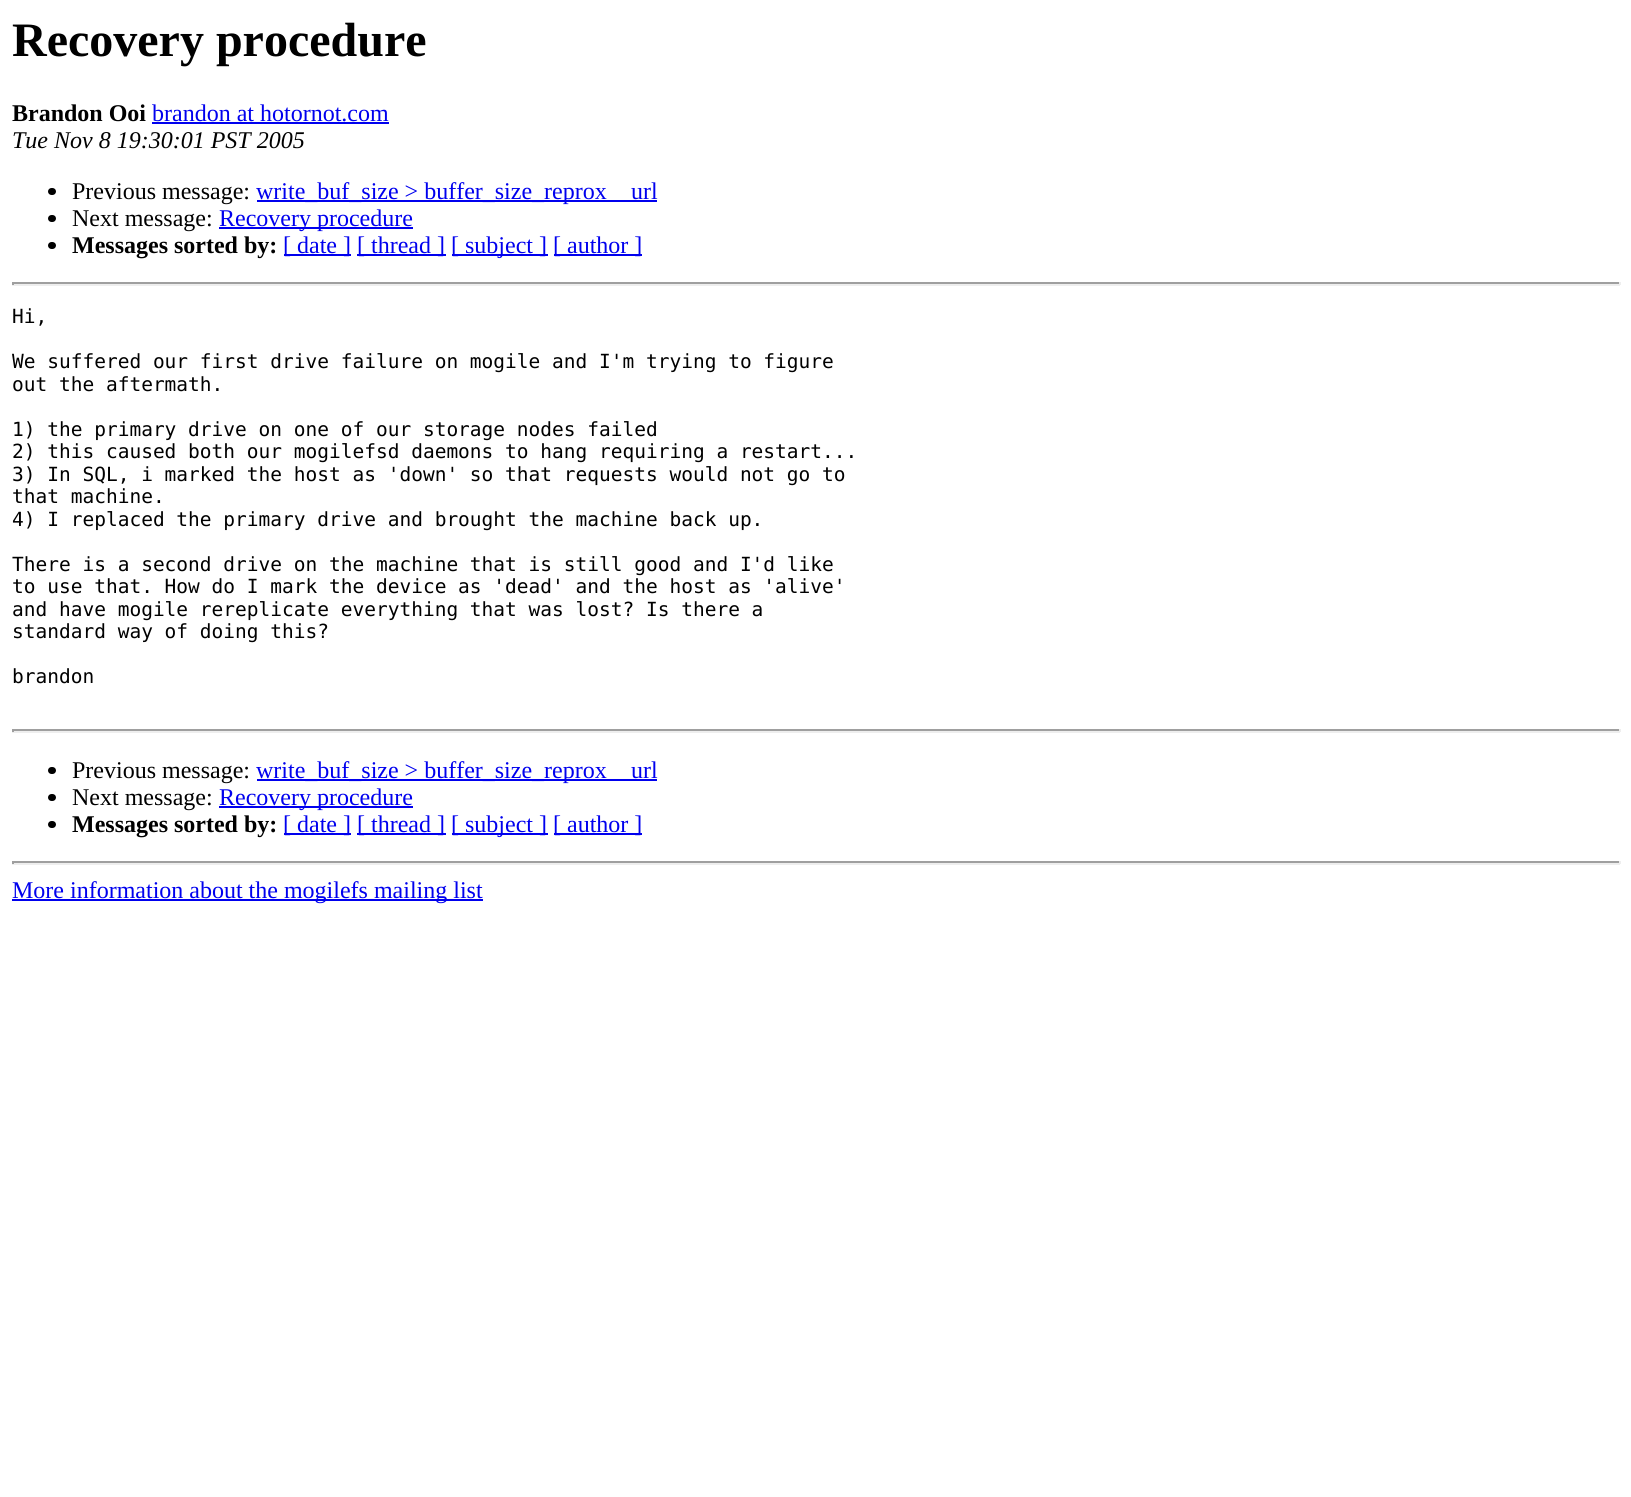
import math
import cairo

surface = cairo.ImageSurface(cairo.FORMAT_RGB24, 1631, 1497)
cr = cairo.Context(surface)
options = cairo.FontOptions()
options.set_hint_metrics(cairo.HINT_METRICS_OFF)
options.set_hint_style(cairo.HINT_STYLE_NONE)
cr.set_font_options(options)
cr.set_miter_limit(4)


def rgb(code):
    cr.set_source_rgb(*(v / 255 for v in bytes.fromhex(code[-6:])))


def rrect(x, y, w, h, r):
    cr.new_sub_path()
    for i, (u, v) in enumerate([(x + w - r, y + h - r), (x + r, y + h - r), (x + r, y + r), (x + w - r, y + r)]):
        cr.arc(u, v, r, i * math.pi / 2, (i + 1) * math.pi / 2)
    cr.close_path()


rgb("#ffffff")
cr.paint()
rgb("#0000ee")
cr.rectangle(152, 122, 237, 2)
cr.fill()
rgb("#000000")
rrect(48, 188, 8, 7, 3.5)
cr.fill()
rgb("#0000ee")
cr.rectangle(257, 200, 400, 2)
cr.fill()
rgb("#000000")
rrect(48, 215, 8, 7, 3.5)
cr.fill()
rgb("#0000ee")
cr.rectangle(219, 227, 194, 2)
cr.fill()
rgb("#000000")
rrect(48, 242, 8, 7, 3.5)
cr.fill()
for x, y, w, h, color in [
    (284, 254, 67, 2, "#0000ee"),
    (357, 254, 89, 2, "#0000ee"),
    (452, 254, 96, 2, "#0000ee"),
    (554, 254, 88, 2, "#0000ee"),
    (12, 282, 1608, 2, "#9f9f9f"),
    (1619, 282, 2, 3, "#eeeeee"),
    (12, 284, 1608, 2, "#eeeeee"),
    (12, 282, 2, 3, "#9f9f9f"),
    (12, 729, 1608, 2, "#9f9f9f"),
    (1619, 729, 2, 3, "#eeeeee"),
    (12, 731, 1608, 2, "#eeeeee"),
    (12, 729, 2, 3, "#9f9f9f"),
]:
    rgb(color)
    cr.rectangle(x, y, w, h)
    cr.fill()
rgb("#000000")
rrect(48, 767, 8, 7, 3.5)
cr.fill()
rgb("#0000ee")
cr.rectangle(257, 779, 400, 2)
cr.fill()
rgb("#000000")
rrect(48, 794, 8, 7, 3.5)
cr.fill()
rgb("#0000ee")
cr.rectangle(219, 806, 194, 2)
cr.fill()
rgb("#000000")
rrect(48, 821, 8, 7, 3.5)
cr.fill()
for x, y, w, h, color in [
    (284, 833, 67, 2, "#0000ee"),
    (357, 833, 89, 2, "#0000ee"),
    (452, 833, 96, 2, "#0000ee"),
    (554, 833, 88, 2, "#0000ee"),
    (12, 861, 1608, 2, "#9f9f9f"),
    (1619, 861, 2, 3, "#eeeeee"),
    (12, 863, 1608, 2, "#eeeeee"),
    (12, 861, 2, 3, "#9f9f9f"),
    (12, 899, 471, 2, "#0000ee"),
]:
    rgb(color)
    cr.rectangle(x, y, w, h)
    cr.fill()
cr.select_font_face("Liberation Serif", cairo.FONT_SLANT_NORMAL, cairo.FONT_WEIGHT_BOLD)
cr.set_font_size(48)
rgb("#000000")
cr.move_to(12, 56)
cr.show_text("Recovery procedure")
cr.set_font_size(24)
cr.move_to(12, 121)
cr.show_text("Brandon Ooi")
cr.select_font_face("Liberation Serif")
rgb("#0000ee")
cr.move_to(152, 121)
cr.show_text("brandon at hotornot.com")
cr.select_font_face("Liberation Serif", cairo.FONT_SLANT_ITALIC)
rgb("#000000")
cr.move_to(12, 148)
cr.show_text("Tue Nov 8 19:30:01 PST 2005")
cr.select_font_face("Liberation Serif")
cr.move_to(72, 199)
cr.show_text("Previous message:")
rgb("#0000ee")
cr.move_to(256, 199)
cr.show_text("write_buf_size > buffer_size_reprox")
cr.move_to(631, 199)
cr.show_text("url")
rgb("#000000")
cr.move_to(72, 226)
cr.show_text("Next message:")
rgb("#0000ee")
cr.move_to(219, 226)
cr.show_text("Recovery procedure")
cr.select_font_face("Liberation Serif", cairo.FONT_SLANT_NORMAL, cairo.FONT_WEIGHT_BOLD)
rgb("#000000")
cr.move_to(72, 253)
cr.show_text("Messages sorted by:")
cr.select_font_face("Liberation Serif")
rgb("#0000ee")
for x, y, s in [
    (283, 253, "[ date ]"),
    (357, 253, "[ thread ]"),
    (451, 253, "[ subject ]"),
    (553, 253, "[ author ]"),
]:
    cr.move_to(x, y)
    cr.show_text(s)
cr.select_font_face("DejaVu Sans Mono")
cr.set_font_size(19.5)
rgb("#000000")
for x, y, s in [
    (12, 323, "Hi,"),
    (12, 368, "We suffered our first drive failure on mogile and I'm trying to figure"),
    (12, 391, "out the aftermath."),
    (12, 436, "1) the primary drive on one of our storage nodes failed"),
    (12, 458, "2) this caused both our mogilefsd daemons to hang requiring a restart..."),
    (12, 481, "3) In SQL, i marked the host as 'down' so that requests would not go to"),
    (12, 503, "that machine."),
    (12, 526, "4) I replaced the primary drive and brought the machine back up."),
    (12, 571, "There is a second drive on the machine that is still good and I'd like"),
    (12, 593, "to use that. How do I mark the device as 'dead' and the host as 'alive'"),
    (12, 616, "and have mogile rereplicate everything that was lost? Is there a"),
    (12, 638, "standard way of doing this?"),
    (12, 683, "brandon"),
]:
    cr.move_to(x, y)
    cr.show_text(s)
cr.select_font_face("Liberation Serif")
cr.set_font_size(24)
cr.move_to(72, 778)
cr.show_text("Previous message:")
rgb("#0000ee")
cr.move_to(256, 778)
cr.show_text("write_buf_size > buffer_size_reprox")
cr.move_to(631, 778)
cr.show_text("url")
rgb("#000000")
cr.move_to(72, 805)
cr.show_text("Next message:")
rgb("#0000ee")
cr.move_to(219, 805)
cr.show_text("Recovery procedure")
cr.select_font_face("Liberation Serif", cairo.FONT_SLANT_NORMAL, cairo.FONT_WEIGHT_BOLD)
rgb("#000000")
cr.move_to(72, 832)
cr.show_text("Messages sorted by:")
cr.select_font_face("Liberation Serif")
rgb("#0000ee")
for x, y, s in [
    (283, 832, "[ date ]"),
    (357, 832, "[ thread ]"),
    (451, 832, "[ subject ]"),
    (553, 832, "[ author ]"),
    (12, 898, "More information about the mogilefs mailing list"),
]:
    cr.move_to(x, y)
    cr.show_text(s)
surface.write_to_png("page.png")
